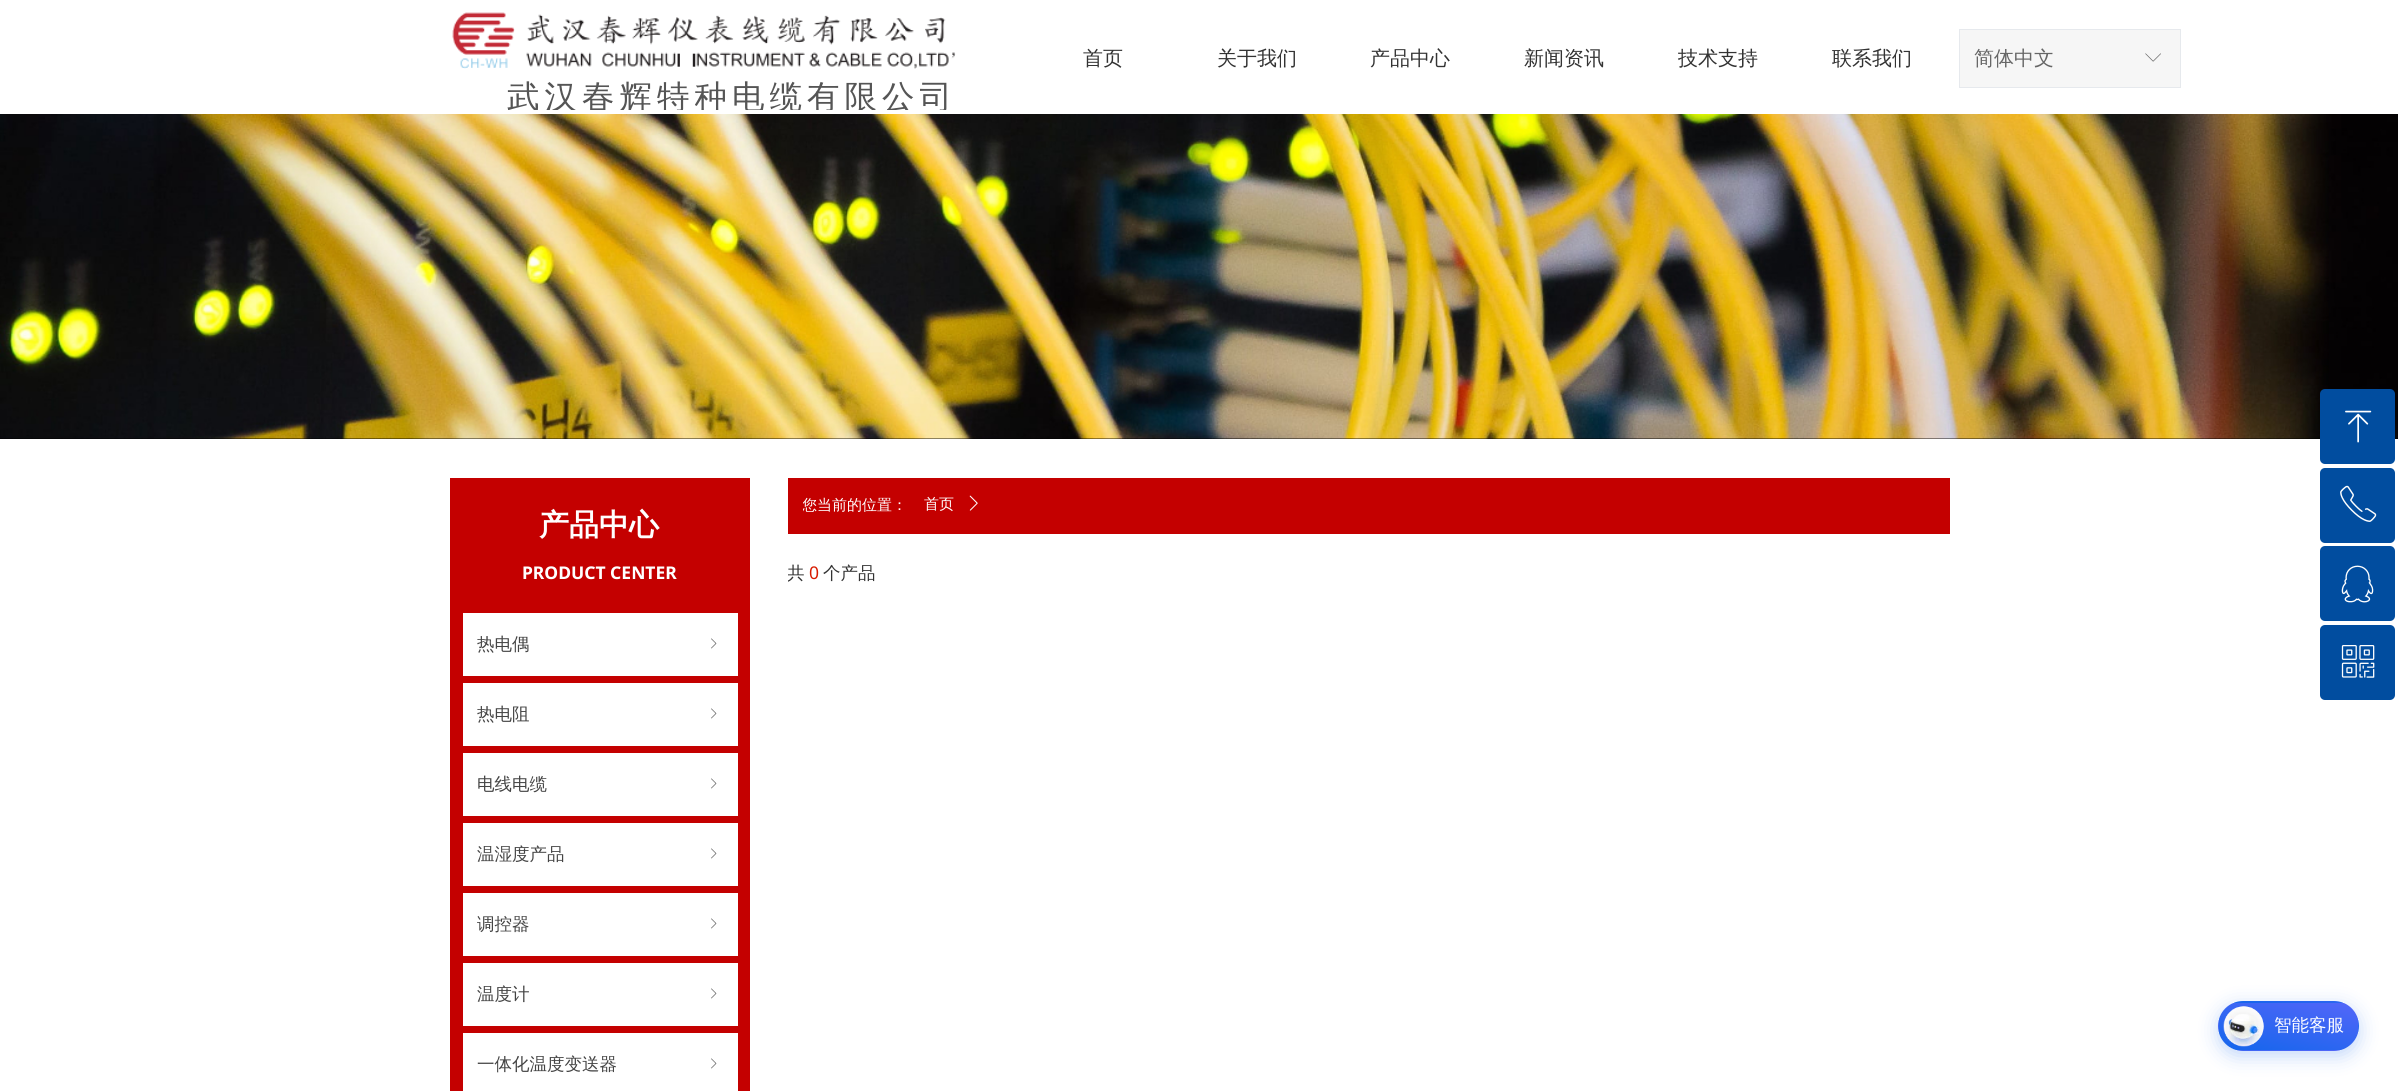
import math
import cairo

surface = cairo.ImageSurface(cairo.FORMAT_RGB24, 2398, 1091)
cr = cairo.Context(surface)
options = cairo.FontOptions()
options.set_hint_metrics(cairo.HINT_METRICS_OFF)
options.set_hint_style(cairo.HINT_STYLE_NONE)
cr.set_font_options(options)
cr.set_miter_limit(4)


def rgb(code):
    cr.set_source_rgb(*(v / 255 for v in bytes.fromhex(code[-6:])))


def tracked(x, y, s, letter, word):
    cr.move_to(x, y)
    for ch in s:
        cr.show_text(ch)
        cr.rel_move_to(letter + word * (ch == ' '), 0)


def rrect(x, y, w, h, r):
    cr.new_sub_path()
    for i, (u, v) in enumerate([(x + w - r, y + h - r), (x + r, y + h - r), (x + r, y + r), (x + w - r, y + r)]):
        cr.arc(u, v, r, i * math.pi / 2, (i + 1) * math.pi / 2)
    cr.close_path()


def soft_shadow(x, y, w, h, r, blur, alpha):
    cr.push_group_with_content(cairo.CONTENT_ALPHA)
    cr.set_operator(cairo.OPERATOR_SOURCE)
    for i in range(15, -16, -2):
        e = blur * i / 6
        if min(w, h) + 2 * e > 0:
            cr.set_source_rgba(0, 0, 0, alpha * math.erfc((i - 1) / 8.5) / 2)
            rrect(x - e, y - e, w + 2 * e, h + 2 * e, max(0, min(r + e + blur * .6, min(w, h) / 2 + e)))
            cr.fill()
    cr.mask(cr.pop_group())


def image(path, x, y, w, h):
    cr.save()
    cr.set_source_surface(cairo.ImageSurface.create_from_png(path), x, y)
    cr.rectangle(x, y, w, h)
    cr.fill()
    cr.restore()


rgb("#ffffff")
cr.paint()
image("img/1.png", 452, 12, 504, 57)
rgb("#f6f6f6")
cr.rectangle(1959.5, 29.5, 221, 58)
cr.fill_preserve()
rgb("#e6e9ed")
cr.set_line_width(1)
cr.stroke()
image("img/2.png", 2145, 53, 16, 9)
rgb("#000000")
cr.rectangle(0, 438, 2398, 1)
cr.fill()
image("img/3.png", 0, 114, 2398, 325)
rgb("#c40000")
cr.rectangle(450, 478, 300, 613)
cr.fill()
rgb("#ffffff")
cr.rectangle(463, 613, 275, 63)
cr.fill()
image("img/4.png", 711, 638, 6, 11)
cr.rectangle(463, 683, 275, 63)
cr.fill()
image("img/4.png", 711, 708, 6, 11)
cr.rectangle(463, 753, 275, 63)
cr.fill()
image("img/4.png", 711, 778, 6, 11)
cr.rectangle(463, 823, 275, 63)
cr.fill()
image("img/4.png", 711, 848, 6, 11)
cr.rectangle(463, 893, 275, 63)
cr.fill()
image("img/4.png", 711, 918, 6, 11)
cr.rectangle(463, 963, 275, 63)
cr.fill()
image("img/4.png", 711, 988, 6, 11)
cr.rectangle(463, 1033, 275, 58)
cr.fill()
image("img/4.png", 711, 1058, 6, 11)
rgb("#c40000")
cr.rectangle(788, 478, 1162, 56)
cr.fill()
image("img/5.png", 969, 495, 9, 16)
rgb("#014d9f")
rrect(2320, 389, 75, 75, 5)
cr.fill()
image("img/6.png", 2345, 410, 27, 33)
rrect(2320, 468, 75, 75, 5)
cr.fill()
image("img/7.png", 2340, 485, 37, 37)
rrect(2320, 546, 75, 75, 5)
cr.fill()
image("img/8.png", 2341, 565, 33, 38)
rrect(2320, 625, 75, 75, 5)
cr.fill()
image("img/9.png", 2341, 645, 34, 33)
rgb("#1366ec")
soft_shadow(2218, 1006, 141, 50, 25, 9.5, 0.26)
rgb("#ffffff")
rrect(2218, 1001, 141, 50, 25)
cr.fill()
cr.save()
rrect(2218, 1001, 141, 50, 25)
cr.clip()
rrect(2218, 1001, 141, 50, 25)
cr.clip()
gradient = cairo.LinearGradient(2305, 905, 2279, 1017)
gradient.add_color_stop_rgba(0, 0.451, 0.4, 1, 1)
gradient.add_color_stop_rgba(1, 0.075, 0.4, 0.925, 1)
cr.set_source(gradient)
cr.rectangle(2234, 1001, 109, 2)
cr.fill()
gradient = cairo.LinearGradient(2166, 952, 2141, 1064)
gradient.add_color_stop_rgba(0, 0.451, 0.4, 1, 1)
gradient.add_color_stop_rgba(1, 0.075, 0.4, 0.925, 1)
cr.set_source(gradient)
cr.rectangle(2218, 1020, 1, 12)
cr.fill()
gradient = cairo.LinearGradient(2305, 952, 2279, 1064)
gradient.add_color_stop_rgba(0, 0.451, 0.4, 1, 1)
gradient.add_color_stop_rgba(1, 0.075, 0.4, 0.925, 1)
cr.set_source(gradient)
cr.rectangle(2219, 1003, 139, 47)
cr.fill()
gradient = cairo.LinearGradient(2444, 952, 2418, 1064)
gradient.add_color_stop_rgba(0, 0.451, 0.4, 1, 1)
gradient.add_color_stop_rgba(1, 0.075, 0.4, 0.925, 1)
cr.set_source(gradient)
cr.rectangle(2358, 1020, 1, 12)
cr.fill()
gradient = cairo.LinearGradient(2305, 1000, 2279, 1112)
gradient.add_color_stop_rgba(0, 0.451, 0.4, 1, 1)
gradient.add_color_stop_rgba(1, 0.075, 0.4, 0.925, 1)
cr.set_source(gradient)
cr.rectangle(2237, 1050, 103, 1)
cr.fill()
cr.restore()
image("img/10.png", 2223, 1006, 41, 41)
cr.select_font_face("WenQuanYi Zen Hei Medium")
cr.set_font_size(20)
rgb("#333333")
for x, y, s in [
    (1083, 65, "首页"),
    (1217, 65, "关于我们"),
    (1370, 65, "产品中心"),
    (1524, 65, "新闻资讯"),
    (1678, 65, "技术支持"),
    (1832, 65, "联系我们"),
]:
    cr.move_to(x, y)
    cr.show_text(s)
rgb("#666666")
cr.move_to(1974, 65)
cr.show_text("简体中文")
cr.save()
cr.rectangle(453, 79, 560, 31)
cr.clip()
cr.set_font_size(32.5)
rgb("#555555")
tracked(507, 108, "武汉春辉特种电缆有限公司", 5, 0)
cr.restore()
cr.select_font_face("WenQuanYi Zen Hei", cairo.FONT_SLANT_NORMAL, cairo.FONT_WEIGHT_BOLD)
cr.set_font_size(30)
rgb("#ffffff")
cr.move_to(539, 535)
cr.show_text("产品中心")
cr.select_font_face("Noto Sans", cairo.FONT_SLANT_NORMAL, cairo.FONT_WEIGHT_BOLD)
cr.set_font_size(17.5)
cr.move_to(522, 579)
cr.show_text("PRODUCT CENTER")
cr.select_font_face("WenQuanYi Zen Hei Medium")
rgb("#444444")
for x, y, s in [
    (477, 650, "热电偶"),
    (477, 720, "热电阻"),
    (477, 790, "电线电缆"),
    (477, 860, "温湿度产品"),
    (477, 930, "调控器"),
    (477, 1000, "温度计"),
    (477, 1070, "一体化温度变送器"),
]:
    cr.move_to(x, y)
    cr.show_text(s)
cr.save()
cr.rectangle(803, 491, 110, 28)
cr.clip()
cr.set_font_size(15)
rgb("#ffffff")
cr.move_to(802, 510)
cr.show_text("您当前的位置：")
cr.restore()
cr.set_font_size(15)
rgb("#ffffff")
cr.move_to(924, 509)
cr.show_text("首页")
cr.save()
cr.rectangle(788, 543, 1162, 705)
cr.clip()
cr.set_font_size(17.5)
rgb("#333333")
cr.move_to(787, 579)
cr.show_text("共")
cr.restore()
cr.select_font_face("Noto Sans")
cr.set_font_size(17.5)
rgb("#d81b00")
cr.move_to(809, 579)
cr.show_text("0")
cr.select_font_face("WenQuanYi Zen Hei Medium")
rgb("#333333")
cr.move_to(823, 579)
cr.show_text("个产品")
rgb("#ffffff")
cr.move_to(2274, 1031)
cr.show_text("智能客服")
surface.write_to_png("page.png")
